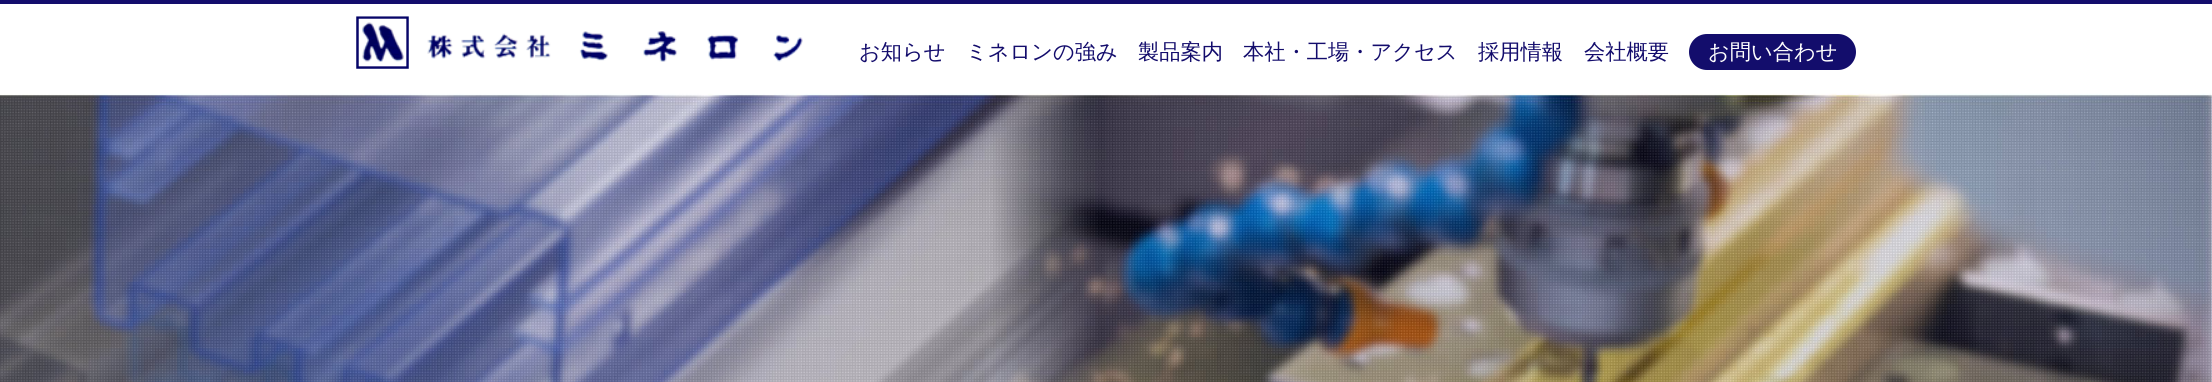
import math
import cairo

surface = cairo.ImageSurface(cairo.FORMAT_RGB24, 2212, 382)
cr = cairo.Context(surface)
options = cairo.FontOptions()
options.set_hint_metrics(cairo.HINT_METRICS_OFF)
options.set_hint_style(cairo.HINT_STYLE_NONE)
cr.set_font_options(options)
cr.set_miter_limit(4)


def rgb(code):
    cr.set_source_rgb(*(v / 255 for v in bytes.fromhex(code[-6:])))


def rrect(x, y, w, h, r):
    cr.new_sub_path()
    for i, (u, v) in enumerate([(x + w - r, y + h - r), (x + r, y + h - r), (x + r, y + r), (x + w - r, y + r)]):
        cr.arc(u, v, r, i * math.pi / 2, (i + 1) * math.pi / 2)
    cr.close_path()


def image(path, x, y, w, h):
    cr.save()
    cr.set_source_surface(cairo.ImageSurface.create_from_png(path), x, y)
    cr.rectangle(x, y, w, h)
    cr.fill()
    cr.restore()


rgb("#ffffff")
cr.paint()
rgb("#130d6c")
cr.rectangle(0, 0, 2212, 4)
cr.fill()
image("img/1.png", 356, 16, 447, 53)
rrect(1689, 34, 167, 36, 18)
cr.fill()
image("img/2.png", 0, 93, 2212, 289)
cr.select_font_face("WenQuanYi Zen Hei Medium")
cr.set_font_size(21.25)
rgb("#130c6c")
for x, y, s in [
    (859, 59, "お知らせ"),
    (966, 59, "ミネロンの強み"),
    (1138, 59, "製品案内"),
    (1243, 59, "本社・工場・アクセス"),
    (1478, 59, "採用情報"),
    (1584, 59, "会社概要"),
]:
    cr.move_to(x, y)
    cr.show_text(s)
rgb("#ffffff")
cr.move_to(1708, 59)
cr.show_text("お問い合わせ")
surface.write_to_png("page.png")
